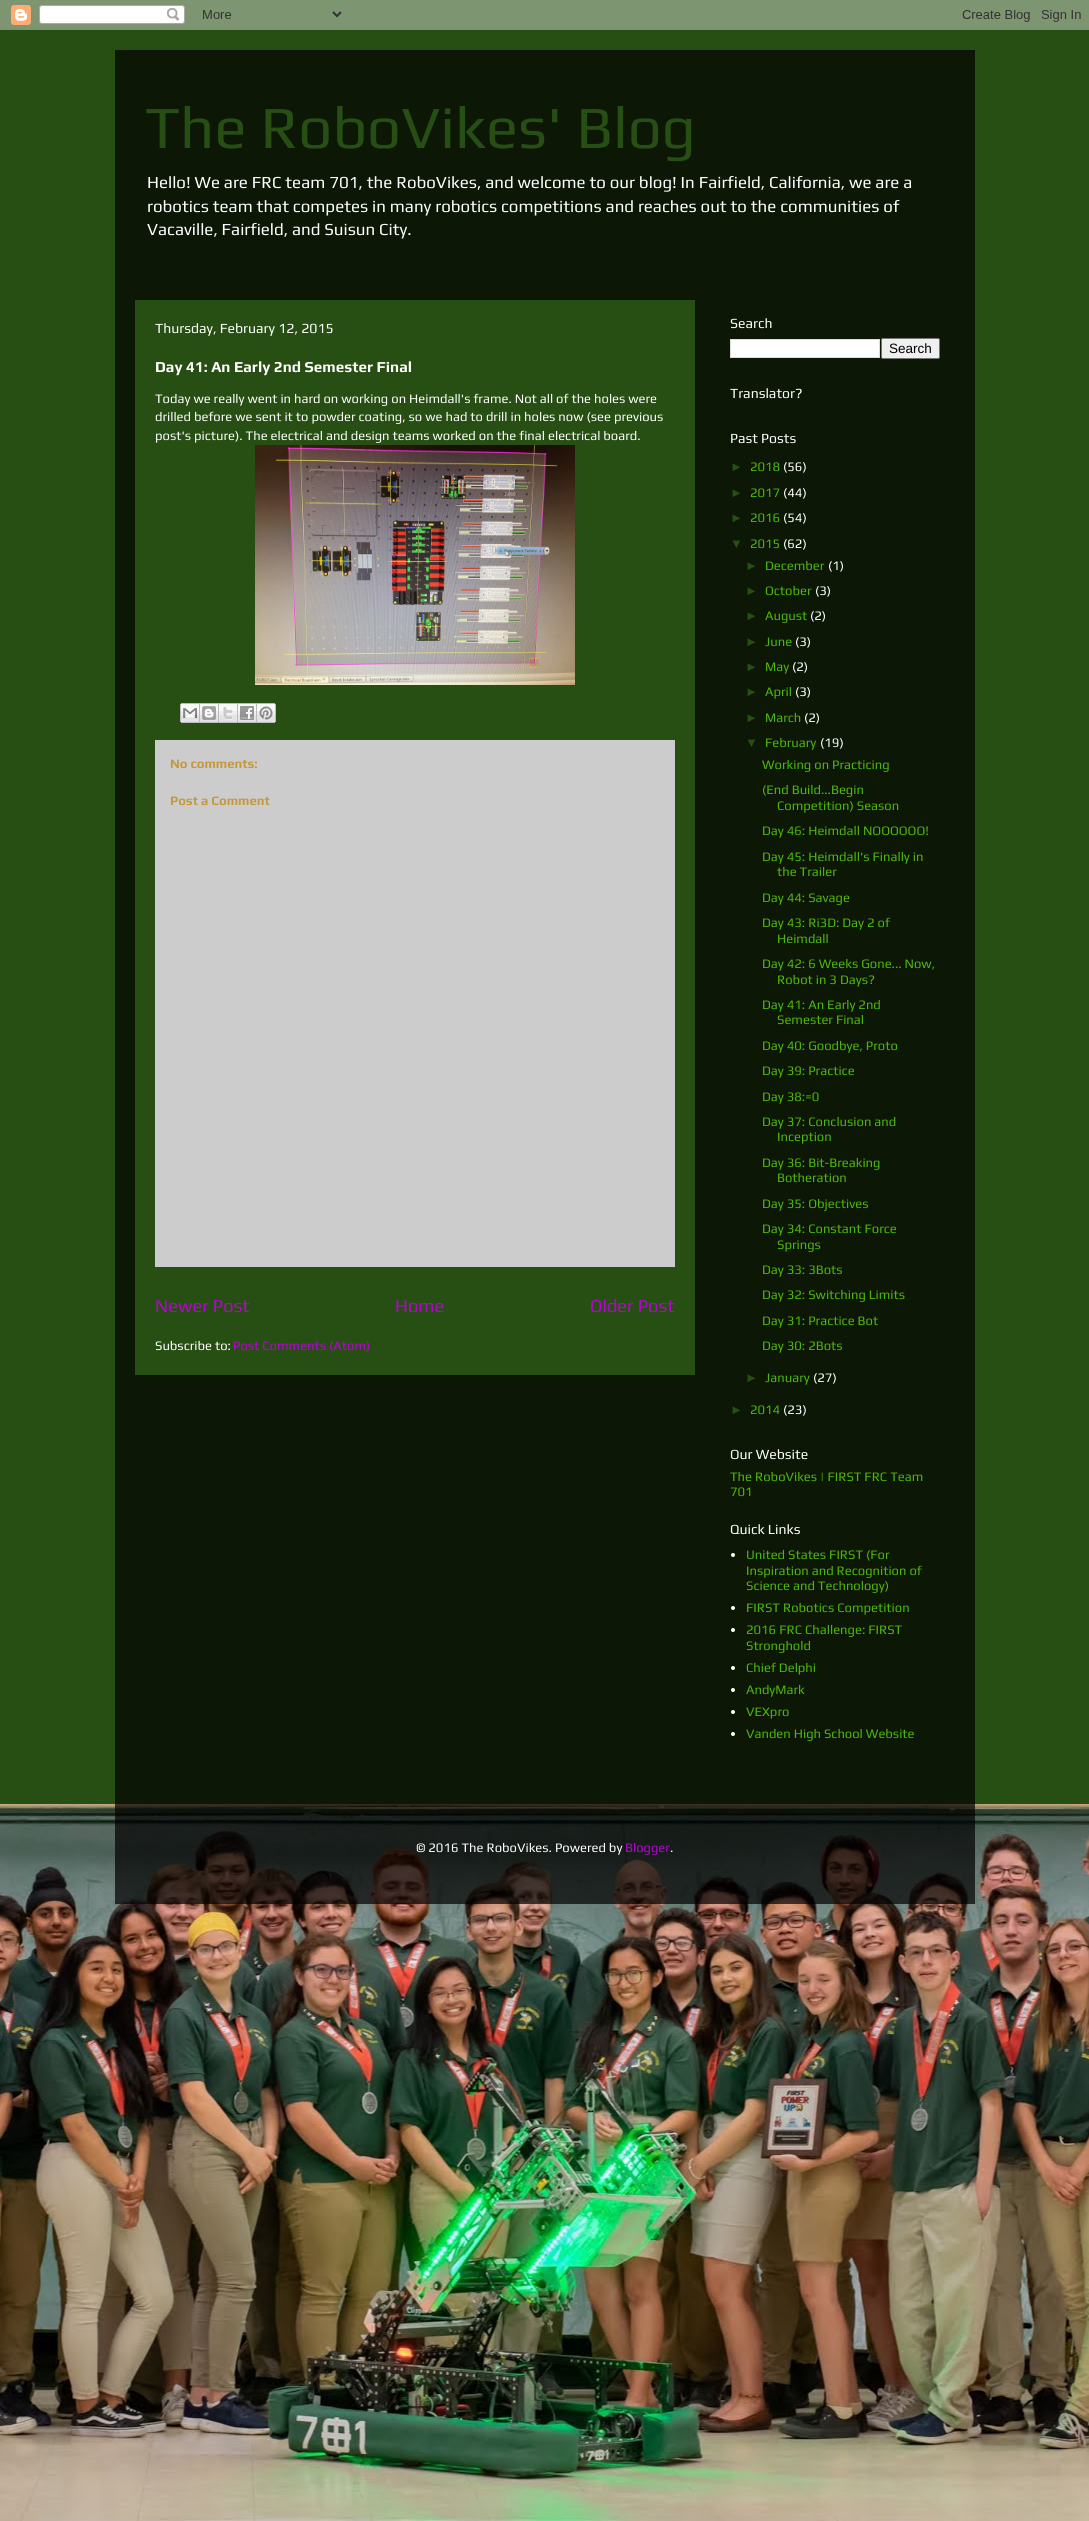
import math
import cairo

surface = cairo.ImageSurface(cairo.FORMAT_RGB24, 1089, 2521)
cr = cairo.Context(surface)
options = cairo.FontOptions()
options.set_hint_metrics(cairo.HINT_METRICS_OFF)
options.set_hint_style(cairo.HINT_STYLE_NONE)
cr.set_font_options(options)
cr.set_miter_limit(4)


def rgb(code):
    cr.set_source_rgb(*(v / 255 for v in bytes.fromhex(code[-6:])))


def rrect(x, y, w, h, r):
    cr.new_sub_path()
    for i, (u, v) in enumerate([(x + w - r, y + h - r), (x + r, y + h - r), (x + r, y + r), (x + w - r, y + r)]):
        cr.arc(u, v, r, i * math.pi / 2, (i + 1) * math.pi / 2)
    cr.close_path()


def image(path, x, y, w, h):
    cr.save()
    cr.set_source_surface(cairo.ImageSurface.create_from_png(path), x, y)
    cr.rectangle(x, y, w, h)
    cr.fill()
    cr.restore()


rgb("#274e13")
cr.paint()
image("img/1.png", 0, 1804, 1089, 717)
image("img/2.png", 0, 0, 1089, 30)
cr.set_source_rgba(0, 0, 0, 0.7)
cr.rectangle(115, 50, 860, 1854)
cr.fill()
rgb("#274e13")
cr.rectangle(135, 300, 560, 1075)
cr.fill()
image("img/3.png", 255, 445, 320, 240)
image("img/4.png", 180, 703, 20, 20)
image("img/5.png", 200, 703, 19, 20)
image("img/6.png", 219, 703, 19, 20)
image("img/7.png", 238, 703, 19, 20)
image("img/8.png", 257, 703, 19, 20)
rgb("#cccccc")
cr.rectangle(155, 740, 520, 527)
cr.fill()
rgb("#ffffff")
cr.rectangle(730.5, 339.5, 149, 18)
cr.fill_preserve()
rgb("#dddddd")
cr.set_line_width(1)
cr.stroke()
rgb("#efefef")
rrect(881.5, 338.5, 58, 20, 1.5)
cr.fill_preserve()
rgb("#767676")
cr.stroke()
rgb("#ffffff")
cr.arc(733, 1555, 2, 0, 2 * math.pi)
cr.fill()
cr.arc(733, 1608, 2, 0, 2 * math.pi)
cr.fill()
cr.arc(733, 1630, 2, 0, 2 * math.pi)
cr.fill()
cr.arc(733, 1668, 2, 0, 2 * math.pi)
cr.fill()
cr.arc(733, 1690, 2, 0, 2 * math.pi)
cr.fill()
cr.arc(733, 1712, 2, 0, 2 * math.pi)
cr.fill()
cr.arc(733, 1734, 2, 0, 2 * math.pi)
cr.fill()
cr.select_font_face("Play")
cr.set_font_size(60)
rgb("#274e13")
cr.move_to(145, 148)
cr.show_text("The RoboVikes' Blog")
cr.set_font_size(16.9)
rgb("#ffffff")
for x, y, s in [
    (147, 188, "Hello! We are FRC team 701, the RoboVikes, and welcome to our blog! In Fairfield, California, we are a"),
    (147, 212, "robotics team that competes in many robotics competitions and reaches out to the communities of"),
    (147, 235, "Vacaville, Fairfield, and Suisun City."),
]:
    cr.move_to(x, y)
    cr.show_text(s)
cr.set_font_size(14)
cr.move_to(155, 333)
cr.show_text("Thursday, February 12, 2015")
cr.select_font_face("Play", cairo.FONT_SLANT_NORMAL, cairo.FONT_WEIGHT_BOLD)
cr.set_font_size(15.25)
cr.move_to(155, 372)
cr.show_text("Day 41: An Early 2nd Semester Final")
cr.select_font_face("Play")
cr.set_font_size(13)
for x, y, s in [
    (155, 403, "Today we really went in hard on working on Heimdall's frame. Not all of the holes were"),
    (155, 421, "drilled before we sent it to powder coating, so we had to drill in holes now (see previous"),
    (155, 440, "post's picture). The electrical and design teams worked on the final electrical board."),
]:
    cr.move_to(x, y)
    cr.show_text(s)
cr.select_font_face("Play", cairo.FONT_SLANT_NORMAL, cairo.FONT_WEIGHT_BOLD)
rgb("#c6983d")
cr.move_to(170, 768)
cr.show_text("No comments:")
cr.move_to(170, 805)
cr.show_text("Post a Comment")
cr.select_font_face("Play")
cr.set_font_size(18.25)
rgb("#b900d9")
for x, y, s in [
    (155, 1312, "Newer Post"),
    (395, 1312, "Home"),
    (590, 1312, "Older Post"),
]:
    cr.move_to(x, y)
    cr.show_text(s)
cr.set_font_size(13)
rgb("#ffffff")
cr.move_to(155, 1350)
cr.show_text("Subscribe to:")
rgb("#b900d9")
cr.move_to(233, 1350)
cr.show_text("Post Comments (Atom)")
cr.set_font_size(14)
rgb("#ffffff")
cr.move_to(730, 328)
cr.show_text("Search")
cr.select_font_face("Liberation Sans")
cr.set_font_size(13.5)
rgb("#000000")
cr.move_to(889, 353)
cr.show_text("Search")
cr.select_font_face("Play")
cr.set_font_size(14)
rgb("#ffffff")
cr.move_to(730, 398)
cr.show_text("Translator?")
cr.move_to(730, 443)
cr.show_text("Past Posts")
cr.select_font_face("Liberation Sans")
cr.set_font_size(13)
rgb("#274e13")
cr.move_to(730, 471)
cr.show_text("►")
cr.select_font_face("Play")
rgb("#4eb809")
cr.move_to(750, 471)
cr.show_text("2018")
rgb("#ffffff")
cr.move_to(783, 471)
cr.show_text("(56)")
cr.select_font_face("Liberation Sans")
rgb("#274e13")
cr.move_to(730, 497)
cr.show_text("►")
cr.select_font_face("Play")
rgb("#4eb809")
cr.move_to(750, 497)
cr.show_text("2017")
rgb("#ffffff")
cr.move_to(783, 497)
cr.show_text("(44)")
cr.select_font_face("Liberation Sans")
rgb("#274e13")
cr.move_to(730, 522)
cr.show_text("►")
cr.select_font_face("Play")
rgb("#4eb809")
cr.move_to(750, 522)
cr.show_text("2016")
rgb("#ffffff")
cr.move_to(783, 522)
cr.show_text("(54)")
cr.select_font_face("Liberation Sans")
rgb("#274e13")
cr.move_to(730, 548)
cr.show_text("▼")
cr.select_font_face("Play")
rgb("#4eb809")
cr.move_to(750, 548)
cr.show_text("2015")
rgb("#ffffff")
cr.move_to(783, 548)
cr.show_text("(62)")
cr.select_font_face("Liberation Sans")
rgb("#274e13")
cr.move_to(745, 570)
cr.show_text("►")
cr.select_font_face("Play")
rgb("#4eb809")
cr.move_to(765, 570)
cr.show_text("December")
rgb("#ffffff")
cr.move_to(828, 570)
cr.show_text("(1)")
cr.select_font_face("Liberation Sans")
rgb("#274e13")
cr.move_to(745, 595)
cr.show_text("►")
cr.select_font_face("Play")
rgb("#4eb809")
cr.move_to(765, 595)
cr.show_text("October")
rgb("#ffffff")
cr.move_to(815, 595)
cr.show_text("(3)")
cr.select_font_face("Liberation Sans")
rgb("#274e13")
cr.move_to(745, 620)
cr.show_text("►")
cr.select_font_face("Play")
rgb("#4eb809")
cr.move_to(765, 620)
cr.show_text("August")
rgb("#ffffff")
cr.move_to(810, 620)
cr.show_text("(2)")
cr.select_font_face("Liberation Sans")
rgb("#274e13")
cr.move_to(745, 646)
cr.show_text("►")
cr.select_font_face("Play")
rgb("#4eb809")
cr.move_to(765, 646)
cr.show_text("June")
rgb("#ffffff")
cr.move_to(795, 646)
cr.show_text("(3)")
cr.select_font_face("Liberation Sans")
rgb("#274e13")
cr.move_to(745, 671)
cr.show_text("►")
cr.select_font_face("Play")
rgb("#4eb809")
cr.move_to(765, 671)
cr.show_text("May")
rgb("#ffffff")
cr.move_to(792, 671)
cr.show_text("(2)")
cr.select_font_face("Liberation Sans")
rgb("#274e13")
cr.move_to(745, 696)
cr.show_text("►")
cr.select_font_face("Play")
rgb("#4eb809")
cr.move_to(765, 696)
cr.show_text("April")
rgb("#ffffff")
cr.move_to(795, 696)
cr.show_text("(3)")
cr.select_font_face("Liberation Sans")
rgb("#274e13")
cr.move_to(745, 722)
cr.show_text("►")
cr.select_font_face("Play")
rgb("#4eb809")
cr.move_to(765, 722)
cr.show_text("March")
rgb("#ffffff")
cr.move_to(804, 722)
cr.show_text("(2)")
cr.select_font_face("Liberation Sans")
rgb("#274e13")
cr.move_to(745, 747)
cr.show_text("▼")
cr.select_font_face("Play")
rgb("#4eb809")
cr.move_to(765, 747)
cr.show_text("February")
rgb("#ffffff")
cr.move_to(820, 747)
cr.show_text("(19)")
rgb("#4eb809")
for x, y, s in [
    (762, 769, "Working on Practicing"),
    (762, 794, "(End Build...Begin"),
    (777, 810, "Competition) Season"),
    (762, 835, "Day 46: Heimdall NOOOOOO!"),
    (762, 861, "Day 45: Heimdall's Finally in"),
    (777, 876, "the Trailer"),
    (762, 902, "Day 44: Savage"),
    (762, 927, "Day 43: Ri3D: Day 2 of"),
    (777, 943, "Heimdall"),
    (762, 968, "Day 42: 6 Weeks Gone... Now,"),
    (777, 984, "Robot in 3 Days?"),
    (762, 1009, "Day 41: An Early 2nd"),
    (777, 1024, "Semester Final"),
    (762, 1050, "Day 40: Goodbye, Proto"),
    (762, 1075, "Day 39: Practice"),
    (762, 1101, "Day 38:=0"),
    (762, 1126, "Day 37: Conclusion and"),
    (777, 1141, "Inception"),
    (762, 1167, "Day 36: Bit-Breaking"),
    (777, 1182, "Botheration"),
    (762, 1208, "Day 35: Objectives"),
    (762, 1233, "Day 34: Constant Force"),
    (777, 1249, "Springs"),
    (762, 1274, "Day 33: 3Bots"),
    (762, 1299, "Day 32: Switching Limits"),
    (762, 1325, "Day 31: Practice Bot"),
    (762, 1350, "Day 30: 2Bots"),
]:
    cr.move_to(x, y)
    cr.show_text(s)
cr.select_font_face("Liberation Sans")
rgb("#274e13")
cr.move_to(745, 1382)
cr.show_text("►")
cr.select_font_face("Play")
rgb("#4eb809")
cr.move_to(765, 1382)
cr.show_text("January")
rgb("#ffffff")
cr.move_to(813, 1382)
cr.show_text("(27)")
cr.select_font_face("Liberation Sans")
rgb("#274e13")
cr.move_to(730, 1414)
cr.show_text("►")
cr.select_font_face("Play")
rgb("#4eb809")
cr.move_to(750, 1414)
cr.show_text("2014")
rgb("#ffffff")
cr.move_to(783, 1414)
cr.show_text("(23)")
cr.set_font_size(14)
cr.move_to(730, 1459)
cr.show_text("Our Website")
cr.set_font_size(13)
rgb("#4eb809")
cr.move_to(730, 1481)
cr.show_text("The RoboVikes | FIRST FRC Team")
cr.move_to(730, 1496)
cr.show_text("701")
cr.set_font_size(14)
rgb("#ffffff")
cr.move_to(730, 1534)
cr.show_text("Quick Links")
cr.set_font_size(13)
rgb("#4eb809")
for x, y, s in [
    (746, 1559, "United States FIRST (For"),
    (746, 1575, "Inspiration and Recognition of"),
    (746, 1590, "Science and Technology)"),
    (746, 1612, "FIRST Robotics Competition"),
    (746, 1634, "2016 FRC Challenge: FIRST"),
    (746, 1650, "Stronghold"),
    (746, 1672, "Chief Delphi"),
    (746, 1694, "AndyMark"),
    (746, 1716, "VEXpro"),
    (746, 1738, "Vanden High School Website"),
]:
    cr.move_to(x, y)
    cr.show_text(s)
rgb("#ffffff")
cr.move_to(416, 1852)
cr.show_text("© 2016 The RoboVikes. Powered by")
rgb("#b900d9")
cr.move_to(625, 1852)
cr.show_text("Blogger")
rgb("#ffffff")
cr.move_to(670, 1852)
cr.show_text(".")
surface.write_to_png("page.png")
